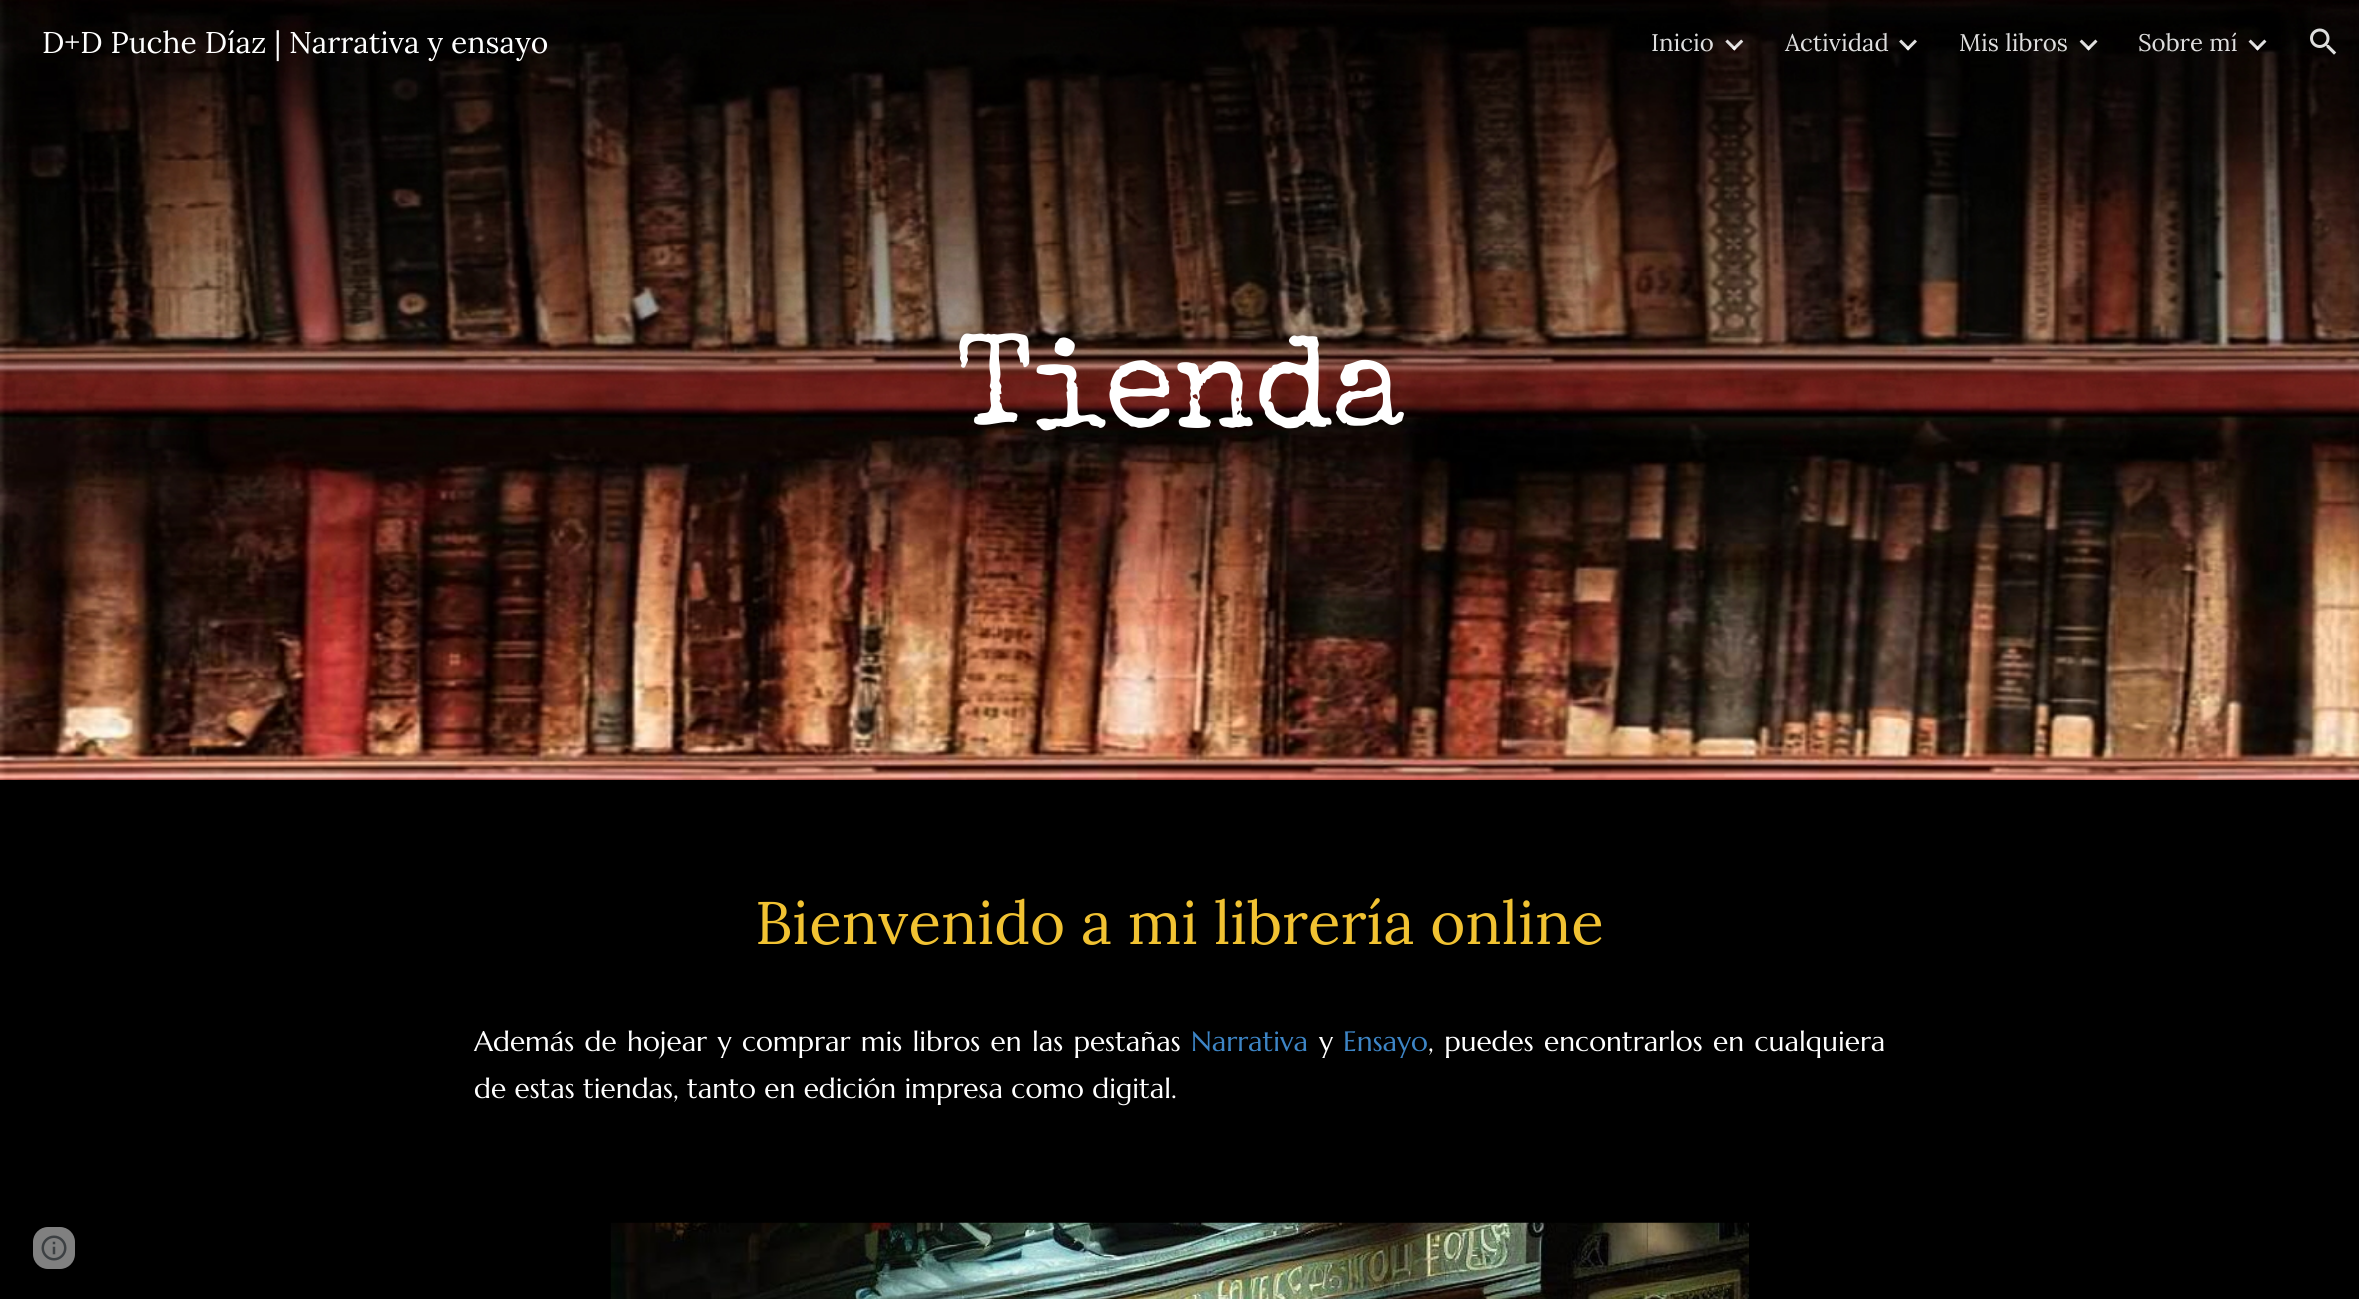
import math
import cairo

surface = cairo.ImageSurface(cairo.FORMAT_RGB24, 2359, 1299)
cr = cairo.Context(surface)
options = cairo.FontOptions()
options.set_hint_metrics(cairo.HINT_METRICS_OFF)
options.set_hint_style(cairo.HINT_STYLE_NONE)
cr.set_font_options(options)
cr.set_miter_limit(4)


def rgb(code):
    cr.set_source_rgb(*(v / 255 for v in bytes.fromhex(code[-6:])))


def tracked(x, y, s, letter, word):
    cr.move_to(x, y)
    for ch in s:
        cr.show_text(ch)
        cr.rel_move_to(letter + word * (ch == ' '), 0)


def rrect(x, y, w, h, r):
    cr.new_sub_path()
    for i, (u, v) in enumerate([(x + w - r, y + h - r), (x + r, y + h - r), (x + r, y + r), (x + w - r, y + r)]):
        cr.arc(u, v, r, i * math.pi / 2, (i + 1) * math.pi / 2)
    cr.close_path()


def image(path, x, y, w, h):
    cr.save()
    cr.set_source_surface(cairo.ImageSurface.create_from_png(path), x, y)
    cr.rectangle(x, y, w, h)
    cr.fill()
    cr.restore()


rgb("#ffffff")
cr.paint()
image("img/6.png", 0, 0, 2359, 780)
image("img/1.png", 1725, 39, 19, 12)
image("img/2.png", 1899, 39, 18, 12)
image("img/3.png", 2079, 39, 19, 12)
image("img/4.png", 2248, 39, 19, 12)
image("img/5.png", 2310, 28, 27, 27)
rgb("#000000")
cr.rectangle(0, 780, 2359, 519)
cr.fill()
image("img/7.png", 610, 1222, 1139, 77)
rgb("#808080")
rrect(33, 1227, 42, 42, 15)
cr.fill()
image("img/8.png", 41, 1235, 26, 26)
cr.select_font_face("Lora")
cr.set_font_size(30)
rgb("#ffffff")
cr.move_to(42, 53)
cr.show_text("D+D Puche Díaz | Narrativa y ensayo")
cr.set_font_size(24)
rgb("#dedede")
for x, y, s in [
    (1651, 51, "Inicio"),
    (1785, 51, "Actividad"),
    (1959, 51, "Mis libros"),
    (2138, 51, "Sobre mí"),
]:
    cr.move_to(x, y)
    cr.show_text(s)
cr.select_font_face("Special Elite")
cr.set_font_size(130)
rgb("#ffffff")
tracked(956, 425, "Tienda", -1.5, 0)
cr.select_font_face("Lora")
cr.set_font_size(60)
rgb("#f1c232")
cr.move_to(755, 944)
cr.show_text("Bienvenido a mi librería online")
cr.select_font_face("Marcellus")
cr.set_font_size(28)
rgb("#ffffff")
tracked(474, 1051, "Además de hojear y comprar mis libros en las pestañas", 0, 2)
rgb("#3d85c6")
cr.move_to(1191, 1051)
cr.show_text("Narrativa")
rgb("#ffffff")
cr.move_to(1319, 1051)
cr.show_text("y")
rgb("#3d85c6")
cr.move_to(1343, 1051)
cr.show_text("Ensayo")
rgb("#ffffff")
tracked(1428, 1051, ", puedes encontrarlos en cualquiera", 0, 2)
cr.move_to(474, 1098)
cr.show_text("de estas tiendas, tanto en edición impresa como digital.")
surface.write_to_png("page.png")
